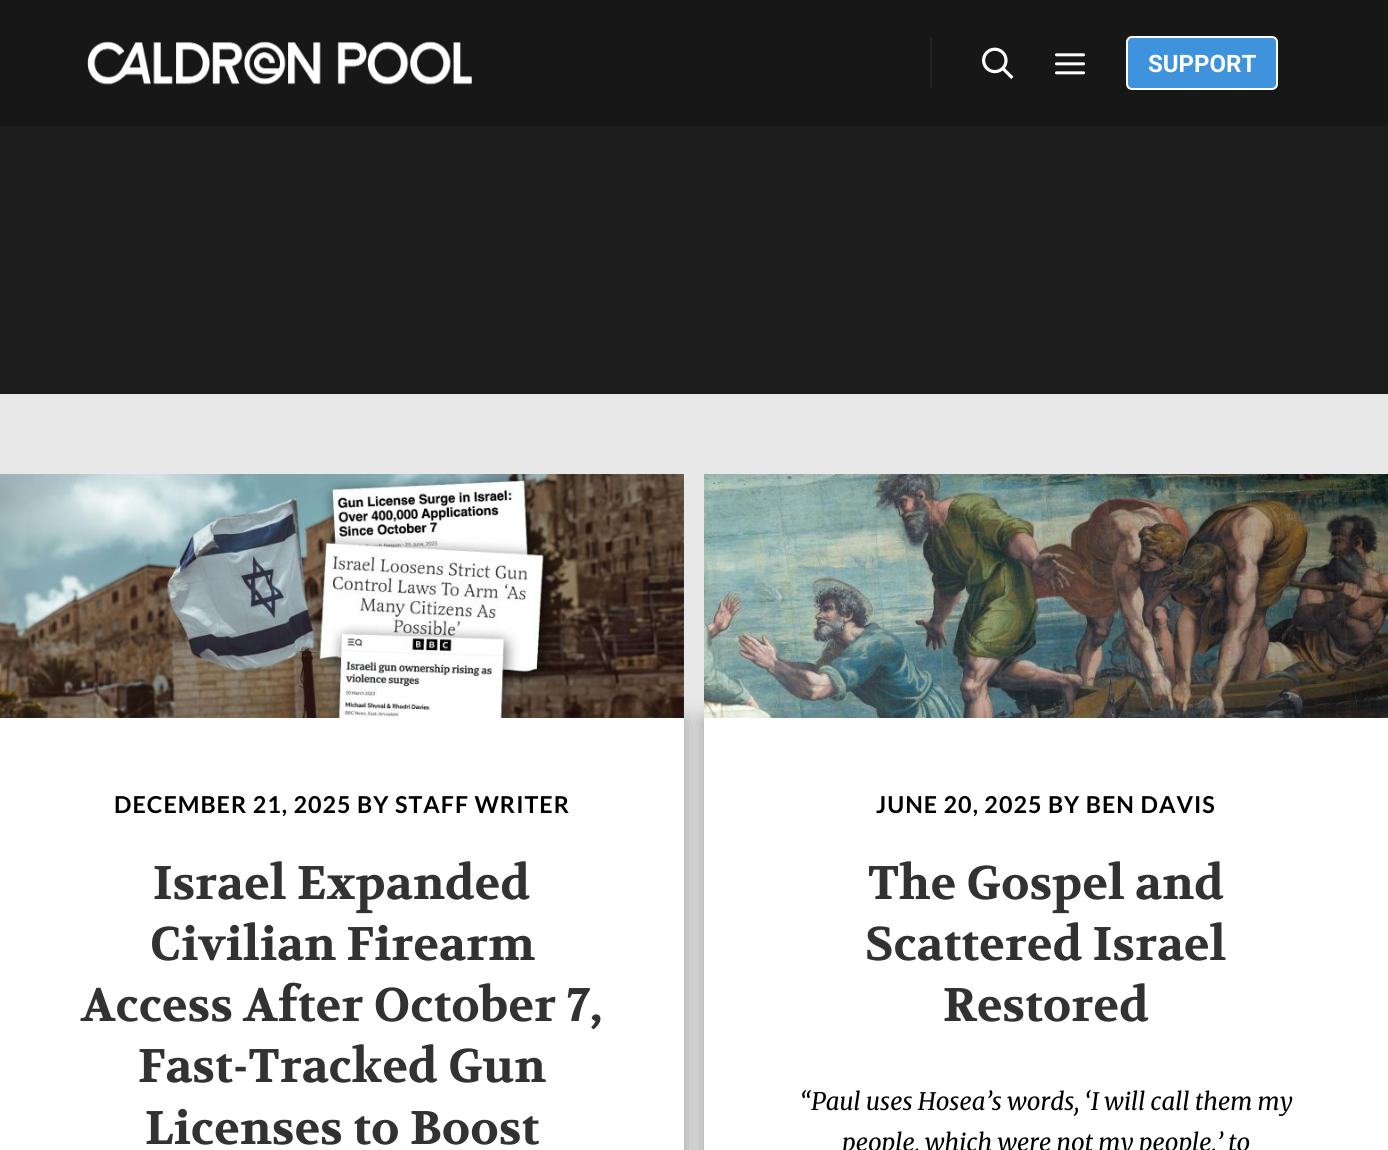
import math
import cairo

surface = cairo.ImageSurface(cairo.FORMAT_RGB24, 1388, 1150)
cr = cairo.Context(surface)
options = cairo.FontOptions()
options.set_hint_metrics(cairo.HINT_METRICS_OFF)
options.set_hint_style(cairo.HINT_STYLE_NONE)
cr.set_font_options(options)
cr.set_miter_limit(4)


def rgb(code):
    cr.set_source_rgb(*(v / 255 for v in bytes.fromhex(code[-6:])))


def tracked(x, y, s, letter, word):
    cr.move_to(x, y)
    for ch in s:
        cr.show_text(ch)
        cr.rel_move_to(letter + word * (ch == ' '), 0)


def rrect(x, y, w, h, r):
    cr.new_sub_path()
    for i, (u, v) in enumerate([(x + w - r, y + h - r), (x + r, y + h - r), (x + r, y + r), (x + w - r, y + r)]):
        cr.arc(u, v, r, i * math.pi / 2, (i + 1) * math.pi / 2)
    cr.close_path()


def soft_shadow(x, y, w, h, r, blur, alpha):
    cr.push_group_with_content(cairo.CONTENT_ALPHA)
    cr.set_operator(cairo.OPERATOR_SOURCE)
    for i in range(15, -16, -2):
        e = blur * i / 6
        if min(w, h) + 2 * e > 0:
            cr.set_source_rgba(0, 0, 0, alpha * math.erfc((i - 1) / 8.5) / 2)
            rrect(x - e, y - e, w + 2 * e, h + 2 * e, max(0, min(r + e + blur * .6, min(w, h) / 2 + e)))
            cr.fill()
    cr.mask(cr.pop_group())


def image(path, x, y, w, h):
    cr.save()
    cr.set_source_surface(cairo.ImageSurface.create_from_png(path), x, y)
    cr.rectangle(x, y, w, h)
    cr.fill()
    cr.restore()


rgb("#e8e8e8")
cr.paint()
rgb("#171717")
cr.rectangle(0, 0, 1388, 126)
cr.fill()
image("img/1.png", 87, 41, 385, 44)
rgb("#222222")
cr.rectangle(930, 38, 2, 50)
cr.fill()
image("img/2.png", 982, 47, 32, 32)
image("img/3.png", 1055, 53, 30, 22)
rgb("#3f93dd")
rrect(1127, 37, 150, 52, 5)
cr.fill_preserve()
rgb("#ffffff")
cr.stroke()
rgb("#1d1d1d")
cr.rectangle(0, 126, 1388, 268)
cr.fill()
rgb("#999999")
soft_shadow(0, 720, 684, 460, 0, 10, 1)
image("img/4.png", 0, 474, 684, 244)
rgb("#ffffff")
cr.rectangle(0, 718, 684, 432)
cr.fill()
rgb("#999999")
soft_shadow(704, 720, 684, 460, 0, 10, 1)
image("img/5.png", 704, 474, 684, 244)
rgb("#ffffff")
cr.rectangle(704, 718, 684, 432)
cr.fill()
cr.select_font_face("Roboto", cairo.FONT_SLANT_NORMAL, cairo.FONT_WEIGHT_BOLD)
cr.set_font_size(24)
cr.move_to(1148, 72)
cr.show_text("SUPPORT")
cr.select_font_face("Lato", cairo.FONT_SLANT_NORMAL, cairo.FONT_WEIGHT_BOLD)
cr.set_font_size(23.3)
rgb("#000000")
tracked(114, 813, "DECEMBER 21, 2025 BY STAFF WRITER", 1, 0)
cr.select_font_face("Volkhov", cairo.FONT_SLANT_NORMAL, cairo.FONT_WEIGHT_BOLD)
cr.set_font_size(47.1)
rgb("#323232")
for x, y, s in [
    (153, 899, "Israel Expanded"),
    (150, 960, "Civilian Firearm"),
    (81, 1021, "Access After October 7,"),
    (138, 1082, "Fast-Tracked Gun"),
    (145, 1144, "Licenses to Boost"),
]:
    cr.move_to(x, y)
    cr.show_text(s)
cr.select_font_face("Lato", cairo.FONT_SLANT_NORMAL, cairo.FONT_WEIGHT_BOLD)
cr.set_font_size(23.3)
rgb("#000000")
tracked(876, 813, "JUNE 20, 2025 BY BEN DAVIS", 1, 0)
cr.select_font_face("Volkhov", cairo.FONT_SLANT_NORMAL, cairo.FONT_WEIGHT_BOLD)
cr.set_font_size(47.1)
rgb("#323232")
for x, y, s in [
    (868, 899, "The Gospel and"),
    (865, 960, "Scattered Israel"),
    (943, 1021, "Restored"),
]:
    cr.move_to(x, y)
    cr.show_text(s)
cr.select_font_face("Merriweather", cairo.FONT_SLANT_ITALIC)
cr.set_font_size(24)
rgb("#000000")
cr.move_to(800, 1110)
cr.show_text("“Paul uses Hosea’s words, ‘I will call them my")
cr.move_to(842, 1151)
cr.show_text("people, which were not my people,’ to")
surface.write_to_png("page.png")
